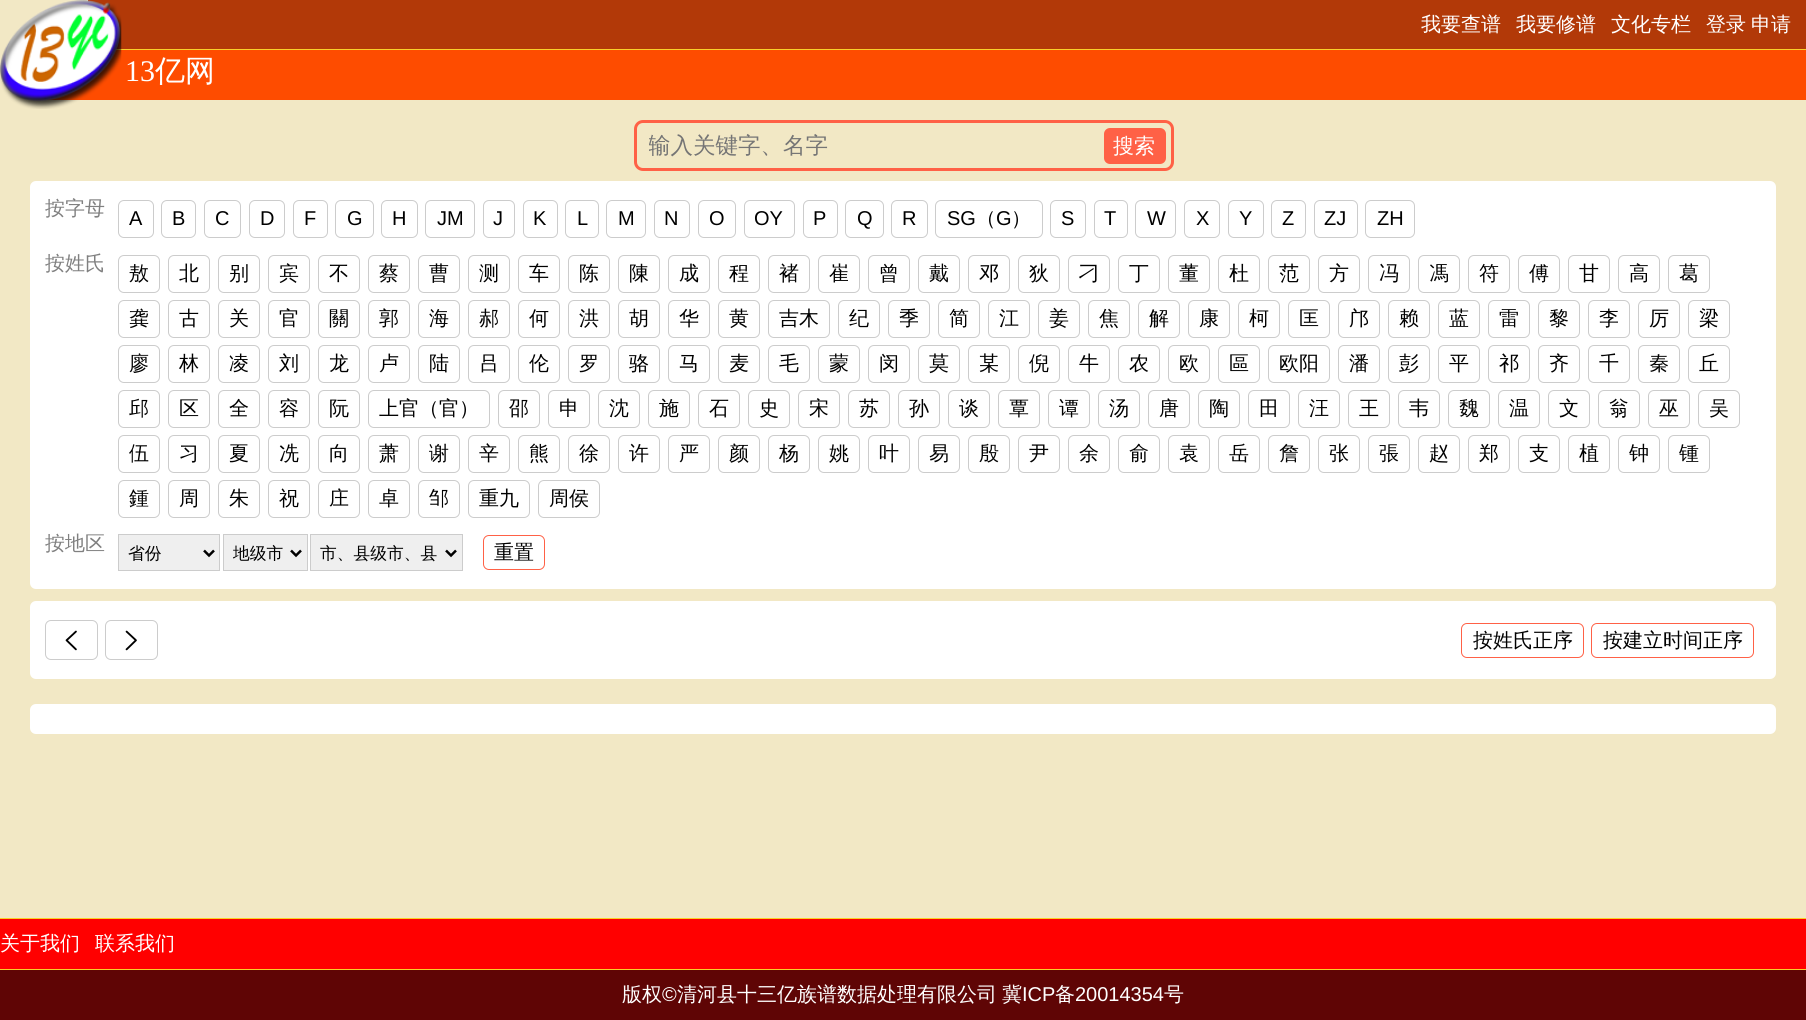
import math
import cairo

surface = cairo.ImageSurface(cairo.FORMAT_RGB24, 1806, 1020)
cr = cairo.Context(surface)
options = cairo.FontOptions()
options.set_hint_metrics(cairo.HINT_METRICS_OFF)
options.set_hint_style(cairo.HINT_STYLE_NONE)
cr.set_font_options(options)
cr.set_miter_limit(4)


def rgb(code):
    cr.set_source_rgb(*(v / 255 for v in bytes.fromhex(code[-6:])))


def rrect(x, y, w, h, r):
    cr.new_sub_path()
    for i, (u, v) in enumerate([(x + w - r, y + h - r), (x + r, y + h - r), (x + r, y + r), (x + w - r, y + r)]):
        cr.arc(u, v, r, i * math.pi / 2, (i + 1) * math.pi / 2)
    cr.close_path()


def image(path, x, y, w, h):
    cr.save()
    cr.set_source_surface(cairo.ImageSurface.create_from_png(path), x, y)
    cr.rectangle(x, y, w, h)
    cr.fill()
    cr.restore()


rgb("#f2e8c5")
cr.paint()
for x, y, w, h, color in [
    (88, 0, 1718, 49, "#b23908"),
    (115, 49, 1691, 1, "#f9d02a"),
    (38, 50, 1768, 50, "#fe4c00"),
]:
    rgb(color)
    cr.rectangle(x, y, w, h)
    cr.fill()
image("img/1.png", 0, 0, 122, 109)
rrect(635.5, 121.5, 537, 48, 7.5)
rgb("#ff6146")
cr.set_line_width(3)
cr.stroke()
rrect(1104, 128, 62, 36, 6)
cr.fill()
rgb("#ffffff")
rrect(30, 181, 1746, 408, 6)
cr.fill()
rrect(118.5, 200.5, 35, 37, 5.5)
rgb("#cccccc")
cr.set_line_width(1)
cr.stroke()
rrect(161.5, 200.5, 34, 37, 5.5)
cr.stroke()
rrect(204.5, 200.5, 36, 37, 5.5)
cr.stroke()
rrect(249.5, 200.5, 35, 37, 5.5)
cr.stroke()
rrect(293.5, 200.5, 34, 37, 5.5)
cr.stroke()
rrect(335.5, 200.5, 38, 37, 5.5)
cr.stroke()
rrect(381.5, 200.5, 36, 37, 5.5)
cr.stroke()
rrect(425.5, 200.5, 49, 37, 5.5)
cr.stroke()
rrect(483.5, 200.5, 31, 37, 5.5)
cr.stroke()
rrect(523.5, 200.5, 34, 37, 5.5)
cr.stroke()
rrect(565.5, 200.5, 33, 37, 5.5)
cr.stroke()
rrect(606.5, 200.5, 39, 37, 5.5)
cr.stroke()
rrect(654.5, 200.5, 35, 37, 5.5)
cr.stroke()
rrect(698.5, 200.5, 37, 37, 5.5)
cr.stroke()
rrect(744.5, 200.5, 50, 37, 5.5)
cr.stroke()
rrect(803.5, 200.5, 34, 37, 5.5)
cr.stroke()
rrect(845.5, 200.5, 38, 37, 5.5)
cr.stroke()
rrect(891.5, 200.5, 36, 37, 5.5)
cr.stroke()
rrect(935.5, 200.5, 107, 37, 5.5)
cr.stroke()
rrect(1050.5, 200.5, 35, 37, 5.5)
cr.stroke()
rrect(1094.5, 200.5, 33, 37, 5.5)
cr.stroke()
rrect(1135.5, 200.5, 40, 37, 5.5)
cr.stroke()
rrect(1184.5, 200.5, 35, 37, 5.5)
cr.stroke()
rrect(1228.5, 200.5, 35, 37, 5.5)
cr.stroke()
rrect(1271.5, 200.5, 34, 37, 5.5)
cr.stroke()
rrect(1314.5, 200.5, 43, 37, 5.5)
cr.stroke()
rrect(1365.5, 200.5, 49, 37, 5.5)
cr.stroke()
rrect(118.5, 255.5, 41, 37, 5.5)
cr.stroke()
rrect(168.5, 255.5, 41, 37, 5.5)
cr.stroke()
rrect(218.5, 255.5, 41, 37, 5.5)
cr.stroke()
rrect(268.5, 255.5, 41, 37, 5.5)
cr.stroke()
rrect(318.5, 255.5, 41, 37, 5.5)
cr.stroke()
rrect(368.5, 255.5, 41, 37, 5.5)
cr.stroke()
rrect(418.5, 255.5, 41, 37, 5.5)
cr.stroke()
rrect(468.5, 255.5, 41, 37, 5.5)
cr.stroke()
rrect(518.5, 255.5, 41, 37, 5.5)
cr.stroke()
rrect(568.5, 255.5, 41, 37, 5.5)
cr.stroke()
rrect(618.5, 255.5, 41, 37, 5.5)
cr.stroke()
rrect(668.5, 255.5, 41, 37, 5.5)
cr.stroke()
rrect(718.5, 255.5, 41, 37, 5.5)
cr.stroke()
rrect(768.5, 255.5, 41, 37, 5.5)
cr.stroke()
rrect(818.5, 255.5, 41, 37, 5.5)
cr.stroke()
rrect(868.5, 255.5, 41, 37, 5.5)
cr.stroke()
rrect(918.5, 255.5, 41, 37, 5.5)
cr.stroke()
rrect(968.5, 255.5, 41, 37, 5.5)
cr.stroke()
rrect(1018.5, 255.5, 41, 37, 5.5)
cr.stroke()
rrect(1068.5, 255.5, 41, 37, 5.5)
cr.stroke()
rrect(1118.5, 255.5, 41, 37, 5.5)
cr.stroke()
rrect(1168.5, 255.5, 41, 37, 5.5)
cr.stroke()
rrect(1218.5, 255.5, 41, 37, 5.5)
cr.stroke()
rrect(1268.5, 255.5, 41, 37, 5.5)
cr.stroke()
rrect(1318.5, 255.5, 41, 37, 5.5)
cr.stroke()
rrect(1368.5, 255.5, 41, 37, 5.5)
cr.stroke()
rrect(1418.5, 255.5, 41, 37, 5.5)
cr.stroke()
rrect(1468.5, 255.5, 41, 37, 5.5)
cr.stroke()
rrect(1518.5, 255.5, 41, 37, 5.5)
cr.stroke()
rrect(1568.5, 255.5, 41, 37, 5.5)
cr.stroke()
rrect(1618.5, 255.5, 41, 37, 5.5)
cr.stroke()
rrect(1668.5, 255.5, 41, 37, 5.5)
cr.stroke()
rrect(118.5, 300.5, 41, 37, 5.5)
cr.stroke()
rrect(168.5, 300.5, 41, 37, 5.5)
cr.stroke()
rrect(218.5, 300.5, 41, 37, 5.5)
cr.stroke()
rrect(268.5, 300.5, 41, 37, 5.5)
cr.stroke()
rrect(318.5, 300.5, 41, 37, 5.5)
cr.stroke()
rrect(368.5, 300.5, 41, 37, 5.5)
cr.stroke()
rrect(418.5, 300.5, 41, 37, 5.5)
cr.stroke()
rrect(468.5, 300.5, 41, 37, 5.5)
cr.stroke()
rrect(518.5, 300.5, 41, 37, 5.5)
cr.stroke()
rrect(568.5, 300.5, 41, 37, 5.5)
cr.stroke()
rrect(618.5, 300.5, 41, 37, 5.5)
cr.stroke()
rrect(668.5, 300.5, 41, 37, 5.5)
cr.stroke()
rrect(718.5, 300.5, 41, 37, 5.5)
cr.stroke()
rrect(768.5, 300.5, 61, 37, 5.5)
cr.stroke()
rrect(838.5, 300.5, 41, 37, 5.5)
cr.stroke()
rrect(888.5, 300.5, 41, 37, 5.5)
cr.stroke()
rrect(938.5, 300.5, 41, 37, 5.5)
cr.stroke()
rrect(988.5, 300.5, 41, 37, 5.5)
cr.stroke()
rrect(1038.5, 300.5, 41, 37, 5.5)
cr.stroke()
rrect(1088.5, 300.5, 41, 37, 5.5)
cr.stroke()
rrect(1138.5, 300.5, 41, 37, 5.5)
cr.stroke()
rrect(1188.5, 300.5, 41, 37, 5.5)
cr.stroke()
rrect(1238.5, 300.5, 41, 37, 5.5)
cr.stroke()
rrect(1288.5, 300.5, 41, 37, 5.5)
cr.stroke()
rrect(1338.5, 300.5, 41, 37, 5.5)
cr.stroke()
rrect(1388.5, 300.5, 41, 37, 5.5)
cr.stroke()
rrect(1438.5, 300.5, 41, 37, 5.5)
cr.stroke()
rrect(1488.5, 300.5, 41, 37, 5.5)
cr.stroke()
rrect(1538.5, 300.5, 41, 37, 5.5)
cr.stroke()
rrect(1588.5, 300.5, 41, 37, 5.5)
cr.stroke()
rrect(1638.5, 300.5, 41, 37, 5.5)
cr.stroke()
rrect(1688.5, 300.5, 41, 37, 5.5)
cr.stroke()
rrect(118.5, 345.5, 41, 37, 5.5)
cr.stroke()
rrect(168.5, 345.5, 41, 37, 5.5)
cr.stroke()
rrect(218.5, 345.5, 41, 37, 5.5)
cr.stroke()
rrect(268.5, 345.5, 41, 37, 5.5)
cr.stroke()
rrect(318.5, 345.5, 41, 37, 5.5)
cr.stroke()
rrect(368.5, 345.5, 41, 37, 5.5)
cr.stroke()
rrect(418.5, 345.5, 41, 37, 5.5)
cr.stroke()
rrect(468.5, 345.5, 41, 37, 5.5)
cr.stroke()
rrect(518.5, 345.5, 41, 37, 5.5)
cr.stroke()
rrect(568.5, 345.5, 41, 37, 5.5)
cr.stroke()
rrect(618.5, 345.5, 41, 37, 5.5)
cr.stroke()
rrect(668.5, 345.5, 41, 37, 5.5)
cr.stroke()
rrect(718.5, 345.5, 41, 37, 5.5)
cr.stroke()
rrect(768.5, 345.5, 41, 37, 5.5)
cr.stroke()
rrect(818.5, 345.5, 41, 37, 5.5)
cr.stroke()
rrect(868.5, 345.5, 41, 37, 5.5)
cr.stroke()
rrect(918.5, 345.5, 41, 37, 5.5)
cr.stroke()
rrect(968.5, 345.5, 41, 37, 5.5)
cr.stroke()
rrect(1018.5, 345.5, 41, 37, 5.5)
cr.stroke()
rrect(1068.5, 345.5, 41, 37, 5.5)
cr.stroke()
rrect(1118.5, 345.5, 41, 37, 5.5)
cr.stroke()
rrect(1168.5, 345.5, 41, 37, 5.5)
cr.stroke()
rrect(1218.5, 345.5, 41, 37, 5.5)
cr.stroke()
rrect(1268.5, 345.5, 61, 37, 5.5)
cr.stroke()
rrect(1338.5, 345.5, 41, 37, 5.5)
cr.stroke()
rrect(1388.5, 345.5, 41, 37, 5.5)
cr.stroke()
rrect(1438.5, 345.5, 41, 37, 5.5)
cr.stroke()
rrect(1488.5, 345.5, 41, 37, 5.5)
cr.stroke()
rrect(1538.5, 345.5, 41, 37, 5.5)
cr.stroke()
rrect(1588.5, 345.5, 41, 37, 5.5)
cr.stroke()
rrect(1638.5, 345.5, 41, 37, 5.5)
cr.stroke()
rrect(1688.5, 345.5, 41, 37, 5.5)
cr.stroke()
rrect(118.5, 390.5, 41, 37, 5.5)
cr.stroke()
rrect(168.5, 390.5, 41, 37, 5.5)
cr.stroke()
rrect(218.5, 390.5, 41, 37, 5.5)
cr.stroke()
rrect(268.5, 390.5, 41, 37, 5.5)
cr.stroke()
rrect(318.5, 390.5, 41, 37, 5.5)
cr.stroke()
rrect(368.5, 390.5, 121, 37, 5.5)
cr.stroke()
rrect(498.5, 390.5, 41, 37, 5.5)
cr.stroke()
rrect(548.5, 390.5, 41, 37, 5.5)
cr.stroke()
rrect(598.5, 390.5, 41, 37, 5.5)
cr.stroke()
rrect(648.5, 390.5, 41, 37, 5.5)
cr.stroke()
rrect(698.5, 390.5, 41, 37, 5.5)
cr.stroke()
rrect(748.5, 390.5, 41, 37, 5.5)
cr.stroke()
rrect(798.5, 390.5, 41, 37, 5.5)
cr.stroke()
rrect(848.5, 390.5, 41, 37, 5.5)
cr.stroke()
rrect(898.5, 390.5, 41, 37, 5.5)
cr.stroke()
rrect(948.5, 390.5, 41, 37, 5.5)
cr.stroke()
rrect(998.5, 390.5, 41, 37, 5.5)
cr.stroke()
rrect(1048.5, 390.5, 41, 37, 5.5)
cr.stroke()
rrect(1098.5, 390.5, 41, 37, 5.5)
cr.stroke()
rrect(1148.5, 390.5, 41, 37, 5.5)
cr.stroke()
rrect(1198.5, 390.5, 41, 37, 5.5)
cr.stroke()
rrect(1248.5, 390.5, 41, 37, 5.5)
cr.stroke()
rrect(1298.5, 390.5, 41, 37, 5.5)
cr.stroke()
rrect(1348.5, 390.5, 41, 37, 5.5)
cr.stroke()
rrect(1398.5, 390.5, 41, 37, 5.5)
cr.stroke()
rrect(1448.5, 390.5, 41, 37, 5.5)
cr.stroke()
rrect(1498.5, 390.5, 41, 37, 5.5)
cr.stroke()
rrect(1548.5, 390.5, 41, 37, 5.5)
cr.stroke()
rrect(1598.5, 390.5, 41, 37, 5.5)
cr.stroke()
rrect(1648.5, 390.5, 41, 37, 5.5)
cr.stroke()
rrect(1698.5, 390.5, 41, 37, 5.5)
cr.stroke()
rrect(118.5, 435.5, 41, 37, 5.5)
cr.stroke()
rrect(168.5, 435.5, 41, 37, 5.5)
cr.stroke()
rrect(218.5, 435.5, 41, 37, 5.5)
cr.stroke()
rrect(268.5, 435.5, 41, 37, 5.5)
cr.stroke()
rrect(318.5, 435.5, 41, 37, 5.5)
cr.stroke()
rrect(368.5, 435.5, 41, 37, 5.5)
cr.stroke()
rrect(418.5, 435.5, 41, 37, 5.5)
cr.stroke()
rrect(468.5, 435.5, 41, 37, 5.5)
cr.stroke()
rrect(518.5, 435.5, 41, 37, 5.5)
cr.stroke()
rrect(568.5, 435.5, 41, 37, 5.5)
cr.stroke()
rrect(618.5, 435.5, 41, 37, 5.5)
cr.stroke()
rrect(668.5, 435.5, 41, 37, 5.5)
cr.stroke()
rrect(718.5, 435.5, 41, 37, 5.5)
cr.stroke()
rrect(768.5, 435.5, 41, 37, 5.5)
cr.stroke()
rrect(818.5, 435.5, 41, 37, 5.5)
cr.stroke()
rrect(868.5, 435.5, 41, 37, 5.5)
cr.stroke()
rrect(918.5, 435.5, 41, 37, 5.5)
cr.stroke()
rrect(968.5, 435.5, 41, 37, 5.5)
cr.stroke()
rrect(1018.5, 435.5, 41, 37, 5.5)
cr.stroke()
rrect(1068.5, 435.5, 41, 37, 5.5)
cr.stroke()
rrect(1118.5, 435.5, 41, 37, 5.5)
cr.stroke()
rrect(1168.5, 435.5, 41, 37, 5.5)
cr.stroke()
rrect(1218.5, 435.5, 41, 37, 5.5)
cr.stroke()
rrect(1268.5, 435.5, 41, 37, 5.5)
cr.stroke()
rrect(1318.5, 435.5, 41, 37, 5.5)
cr.stroke()
rrect(1368.5, 435.5, 41, 37, 5.5)
cr.stroke()
rrect(1418.5, 435.5, 41, 37, 5.5)
cr.stroke()
rrect(1468.5, 435.5, 41, 37, 5.5)
cr.stroke()
rrect(1518.5, 435.5, 41, 37, 5.5)
cr.stroke()
rrect(1568.5, 435.5, 41, 37, 5.5)
cr.stroke()
rrect(1618.5, 435.5, 41, 37, 5.5)
cr.stroke()
rrect(1668.5, 435.5, 41, 37, 5.5)
cr.stroke()
rrect(118.5, 480.5, 41, 37, 5.5)
cr.stroke()
rrect(168.5, 480.5, 41, 37, 5.5)
cr.stroke()
rrect(218.5, 480.5, 41, 37, 5.5)
cr.stroke()
rrect(268.5, 480.5, 41, 37, 5.5)
cr.stroke()
rrect(318.5, 480.5, 41, 37, 5.5)
cr.stroke()
rrect(368.5, 480.5, 41, 37, 5.5)
cr.stroke()
rrect(418.5, 480.5, 41, 37, 5.5)
cr.stroke()
rrect(468.5, 480.5, 61, 37, 5.5)
cr.stroke()
rrect(538.5, 480.5, 61, 37, 5.5)
cr.stroke()
rgb("#efefef")
cr.rectangle(118.5, 534.5, 101, 36)
cr.fill_preserve()
rgb("#cccccc")
cr.stroke()
cr.new_path()
cr.move_to(204, 550.5)
cr.line_to(209, 555.5)
cr.line_to(214, 550.5)
rgb("#000000")
cr.set_line_width(2.5)
cr.stroke()
rgb("#efefef")
cr.rectangle(223.5, 534.5, 84, 36)
cr.fill_preserve()
rgb("#cccccc")
cr.set_line_width(1)
cr.stroke()
cr.new_path()
cr.move_to(291, 550.5)
cr.line_to(296, 555.5)
cr.line_to(301, 550.5)
rgb("#000000")
cr.set_line_width(2.5)
cr.stroke()
rgb("#efefef")
cr.rectangle(310.5, 534.5, 152, 36)
cr.fill_preserve()
rgb("#cccccc")
cr.set_line_width(1)
cr.stroke()
cr.new_path()
cr.move_to(446, 550.5)
cr.line_to(451, 555.5)
cr.line_to(456, 550.5)
rgb("#000000")
cr.set_line_width(2.5)
cr.stroke()
rrect(483.5, 535.5, 61, 34, 5.5)
rgb("#ff6146")
cr.set_line_width(1)
cr.stroke()
rgb("#ffffff")
rrect(30, 601, 1746, 78, 6)
cr.fill()
rrect(45.5, 620.5, 52, 39, 5.5)
rgb("#cccccc")
cr.stroke()
image("img/2.png", 65, 630, 12, 21)
rrect(105.5, 620.5, 52, 39, 5.5)
cr.stroke()
image("img/3.png", 125, 630, 12, 21)
rrect(1461.5, 623.5, 122, 34, 5.5)
rgb("#ff6146")
cr.stroke()
rrect(1591.5, 623.5, 162, 34, 5.5)
cr.stroke()
rgb("#ffffff")
rrect(30, 704, 1746, 30, 6)
cr.fill()
for x, y, w, h, color in [
    (0, 918, 1806, 1, "#f9d02a"),
    (0, 919, 1806, 50, "#ff0000"),
    (0, 969, 1806, 1, "#f9d02a"),
    (0, 970, 1806, 50, "#5f0505"),
]:
    rgb(color)
    cr.rectangle(x, y, w, h)
    cr.fill()
cr.select_font_face("WenQuanYi Zen Hei Medium")
cr.set_font_size(20)
rgb("#ffffff")
for x, y, s in [
    (1421, 31, "我要查谱"),
    (1516, 31, "我要修谱"),
    (1611, 31, "文化专栏"),
    (1706, 31, "登录"),
    (1751, 31, "申请"),
]:
    cr.move_to(x, y)
    cr.show_text(s)
cr.select_font_face("Liberation Serif")
cr.set_font_size(30)
cr.move_to(125, 81)
cr.show_text("13")
cr.select_font_face("WenQuanYi Zen Hei Medium")
cr.move_to(155, 81)
cr.show_text("亿网")
cr.save()
cr.rectangle(649, 130, 462, 30)
cr.clip()
cr.set_font_size(22.5)
rgb("#757575")
cr.move_to(648, 153)
cr.show_text("输入关键字、名字")
cr.restore()
cr.set_font_size(21)
cr.move_to(1113, 153)
cr.show_text("搜索")
cr.set_font_size(20)
rgb("#808080")
cr.move_to(45, 215)
cr.show_text("按字母")
cr.select_font_face("Liberation Sans")
rgb("#000000")
for x, y, s in [
    (129, 225, "A"),
    (172, 225, "B"),
    (215, 225, "C"),
    (260, 225, "D"),
    (304, 225, "F"),
    (347, 225, "G"),
    (392, 225, "H"),
    (437, 225, "JM"),
    (493, 225, "J"),
    (533, 225, "K"),
    (577, 225, "L"),
    (618, 225, "M"),
    (664, 225, "N"),
    (709, 225, "O"),
    (754, 225, "OY"),
    (813, 225, "P"),
    (857, 225, "Q"),
    (902, 225, "R"),
    (947, 225, "SG"),
]:
    cr.move_to(x, y)
    cr.show_text(s)
cr.select_font_face("WenQuanYi Zen Hei Medium")
cr.move_to(976, 225)
cr.show_text("（")
cr.select_font_face("Liberation Sans")
cr.move_to(996, 225)
cr.show_text("G")
cr.select_font_face("WenQuanYi Zen Hei Medium")
cr.move_to(1011, 225)
cr.show_text("）")
cr.select_font_face("Liberation Sans")
for x, y, s in [
    (1061, 225, "S"),
    (1104, 225, "T"),
    (1147, 225, "W"),
    (1196, 225, "X"),
    (1239, 225, "Y"),
    (1282, 225, "Z"),
    (1324, 225, "ZJ"),
    (1377, 225, "ZH"),
]:
    cr.move_to(x, y)
    cr.show_text(s)
cr.select_font_face("WenQuanYi Zen Hei Medium")
rgb("#808080")
cr.move_to(45, 270)
cr.show_text("按姓氏")
rgb("#000000")
for x, y, s in [
    (129, 280, "敖"),
    (179, 280, "北"),
    (229, 280, "别"),
    (279, 280, "宾"),
    (329, 280, "不"),
    (379, 280, "蔡"),
    (429, 280, "曹"),
    (479, 280, "测"),
    (529, 280, "车"),
    (579, 280, "陈"),
    (629, 280, "陳"),
    (679, 280, "成"),
    (729, 280, "程"),
    (779, 280, "褚"),
    (829, 280, "崔"),
    (879, 280, "曾"),
    (929, 280, "戴"),
    (979, 280, "邓"),
    (1029, 280, "狄"),
    (1079, 280, "刁"),
    (1129, 280, "丁"),
    (1179, 280, "董"),
    (1229, 280, "杜"),
    (1279, 280, "范"),
    (1329, 280, "方"),
    (1379, 280, "冯"),
    (1429, 280, "馮"),
    (1479, 280, "符"),
    (1529, 280, "傅"),
    (1579, 280, "甘"),
    (1629, 280, "高"),
    (1679, 280, "葛"),
    (129, 325, "龚"),
    (179, 325, "古"),
    (229, 325, "关"),
    (279, 325, "官"),
    (329, 325, "關"),
    (379, 325, "郭"),
    (429, 325, "海"),
    (479, 325, "郝"),
    (529, 325, "何"),
    (579, 325, "洪"),
    (629, 325, "胡"),
    (679, 325, "华"),
    (729, 325, "黄"),
    (779, 325, "吉木"),
    (849, 325, "纪"),
    (899, 325, "季"),
    (949, 325, "简"),
    (999, 325, "江"),
    (1049, 325, "姜"),
    (1099, 325, "焦"),
    (1149, 325, "解"),
    (1199, 325, "康"),
    (1249, 325, "柯"),
    (1299, 325, "匡"),
    (1349, 325, "邝"),
    (1399, 325, "赖"),
    (1449, 325, "蓝"),
    (1499, 325, "雷"),
    (1549, 325, "黎"),
    (1599, 325, "李"),
    (1649, 325, "厉"),
    (1699, 325, "梁"),
    (129, 370, "廖"),
    (179, 370, "林"),
    (229, 370, "凌"),
    (279, 370, "刘"),
    (329, 370, "龙"),
    (379, 370, "卢"),
    (429, 370, "陆"),
    (479, 370, "吕"),
    (529, 370, "伦"),
    (579, 370, "罗"),
    (629, 370, "骆"),
    (679, 370, "马"),
    (729, 370, "麦"),
    (779, 370, "毛"),
    (829, 370, "蒙"),
    (879, 370, "闵"),
    (929, 370, "莫"),
    (979, 370, "某"),
    (1029, 370, "倪"),
    (1079, 370, "牛"),
    (1129, 370, "农"),
    (1179, 370, "欧"),
    (1229, 370, "區"),
    (1279, 370, "欧阳"),
    (1349, 370, "潘"),
    (1399, 370, "彭"),
    (1449, 370, "平"),
    (1499, 370, "祁"),
    (1549, 370, "齐"),
    (1599, 370, "千"),
    (1649, 370, "秦"),
    (1699, 370, "丘"),
    (129, 415, "邱"),
    (179, 415, "区"),
    (229, 415, "全"),
    (279, 415, "容"),
    (329, 415, "阮"),
    (379, 415, "上官（官）"),
    (509, 415, "邵"),
    (559, 415, "申"),
    (609, 415, "沈"),
    (659, 415, "施"),
    (709, 415, "石"),
    (759, 415, "史"),
    (809, 415, "宋"),
    (859, 415, "苏"),
    (909, 415, "孙"),
    (959, 415, "谈"),
    (1009, 415, "覃"),
    (1059, 415, "谭"),
    (1109, 415, "汤"),
    (1159, 415, "唐"),
    (1209, 415, "陶"),
    (1259, 415, "田"),
    (1309, 415, "汪"),
    (1359, 415, "王"),
    (1409, 415, "韦"),
    (1459, 415, "魏"),
    (1509, 415, "温"),
    (1559, 415, "文"),
    (1609, 415, "翁"),
    (1659, 415, "巫"),
    (1709, 415, "吴"),
    (129, 460, "伍"),
    (179, 460, "习"),
    (229, 460, "夏"),
    (279, 460, "冼"),
    (329, 460, "向"),
    (379, 460, "萧"),
    (429, 460, "谢"),
    (479, 460, "辛"),
    (529, 460, "熊"),
    (579, 460, "徐"),
    (629, 460, "许"),
    (679, 460, "严"),
    (729, 460, "颜"),
    (779, 460, "杨"),
    (829, 460, "姚"),
    (879, 460, "叶"),
    (929, 460, "易"),
    (979, 460, "殷"),
    (1029, 460, "尹"),
    (1079, 460, "余"),
    (1129, 460, "俞"),
    (1179, 460, "袁"),
    (1229, 460, "岳"),
    (1279, 460, "詹"),
    (1329, 460, "张"),
    (1379, 460, "張"),
    (1429, 460, "赵"),
    (1479, 460, "郑"),
    (1529, 460, "支"),
    (1579, 460, "植"),
    (1629, 460, "钟"),
    (1679, 460, "锺"),
    (129, 505, "鍾"),
    (179, 505, "周"),
    (229, 505, "朱"),
    (279, 505, "祝"),
    (329, 505, "庄"),
    (379, 505, "卓"),
    (429, 505, "邹"),
    (479, 505, "重九"),
    (549, 505, "周侯"),
]:
    cr.move_to(x, y)
    cr.show_text(s)
rgb("#808080")
cr.move_to(45, 550)
cr.show_text("按地区")
cr.set_font_size(16.75)
rgb("#000000")
cr.move_to(128, 559)
cr.show_text("省份")
cr.save()
cr.rectangle(233, 543, 50, 21)
cr.clip()
cr.move_to(233, 559)
cr.show_text("地级市")
cr.restore()
cr.move_to(320, 559)
cr.show_text("市、县级市、县")
cr.set_font_size(20)
for x, y, s in [
    (494, 559, "重置"),
    (1473, 647, "按姓氏正序"),
    (1603, 647, "按建立时间正序"),
]:
    cr.move_to(x, y)
    cr.show_text(s)
rgb("#ffffff")
for x, y, s in [
    (0, 950, "关于我们"),
    (95, 950, "联系我们"),
    (622, 1001, "版权"),
]:
    cr.move_to(x, y)
    cr.show_text(s)
cr.select_font_face("Liberation Sans")
cr.move_to(662, 1001)
cr.show_text("©")
cr.select_font_face("WenQuanYi Zen Hei Medium")
cr.move_to(677, 1001)
cr.show_text("清河县十三亿族谱数据处理有限公司")
cr.move_to(1002, 1001)
cr.show_text("冀")
cr.select_font_face("Liberation Sans")
cr.move_to(1022, 1001)
cr.show_text("ICP")
cr.select_font_face("WenQuanYi Zen Hei Medium")
cr.move_to(1055, 1001)
cr.show_text("备")
cr.select_font_face("Liberation Sans")
cr.move_to(1075, 1001)
cr.show_text("20014354")
cr.select_font_face("WenQuanYi Zen Hei Medium")
cr.move_to(1164, 1001)
cr.show_text("号")
surface.write_to_png("page.png")
